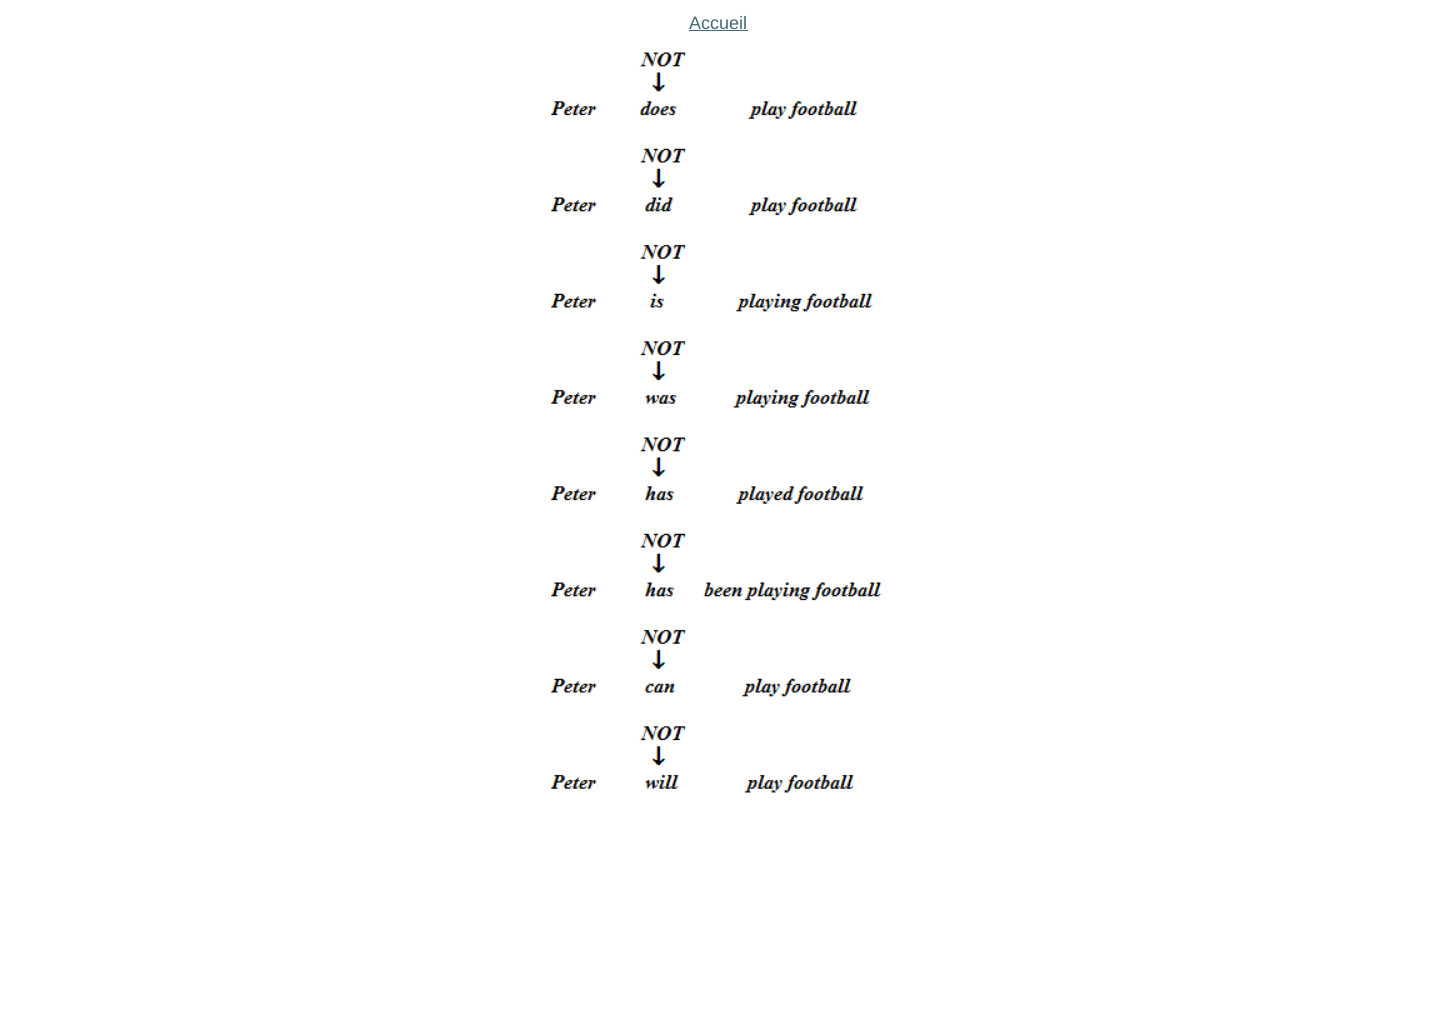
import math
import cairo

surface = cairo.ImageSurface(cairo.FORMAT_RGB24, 1436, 1035)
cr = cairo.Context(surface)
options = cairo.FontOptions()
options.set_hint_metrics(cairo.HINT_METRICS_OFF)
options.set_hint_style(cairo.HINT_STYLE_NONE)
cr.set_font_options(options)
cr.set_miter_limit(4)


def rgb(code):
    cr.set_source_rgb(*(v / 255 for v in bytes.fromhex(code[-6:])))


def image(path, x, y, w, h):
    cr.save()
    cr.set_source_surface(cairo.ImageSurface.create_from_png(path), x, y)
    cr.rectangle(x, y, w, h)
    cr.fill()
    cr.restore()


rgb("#ffffff")
cr.paint()
rgb("#436976")
cr.rectangle(689, 30, 59, 1)
cr.fill()
image("img/1.png", 551, 52, 331, 741)
cr.select_font_face("Liberation Sans")
cr.set_font_size(18)
cr.move_to(689, 29)
cr.show_text("Accueil")
surface.write_to_png("page.png")
